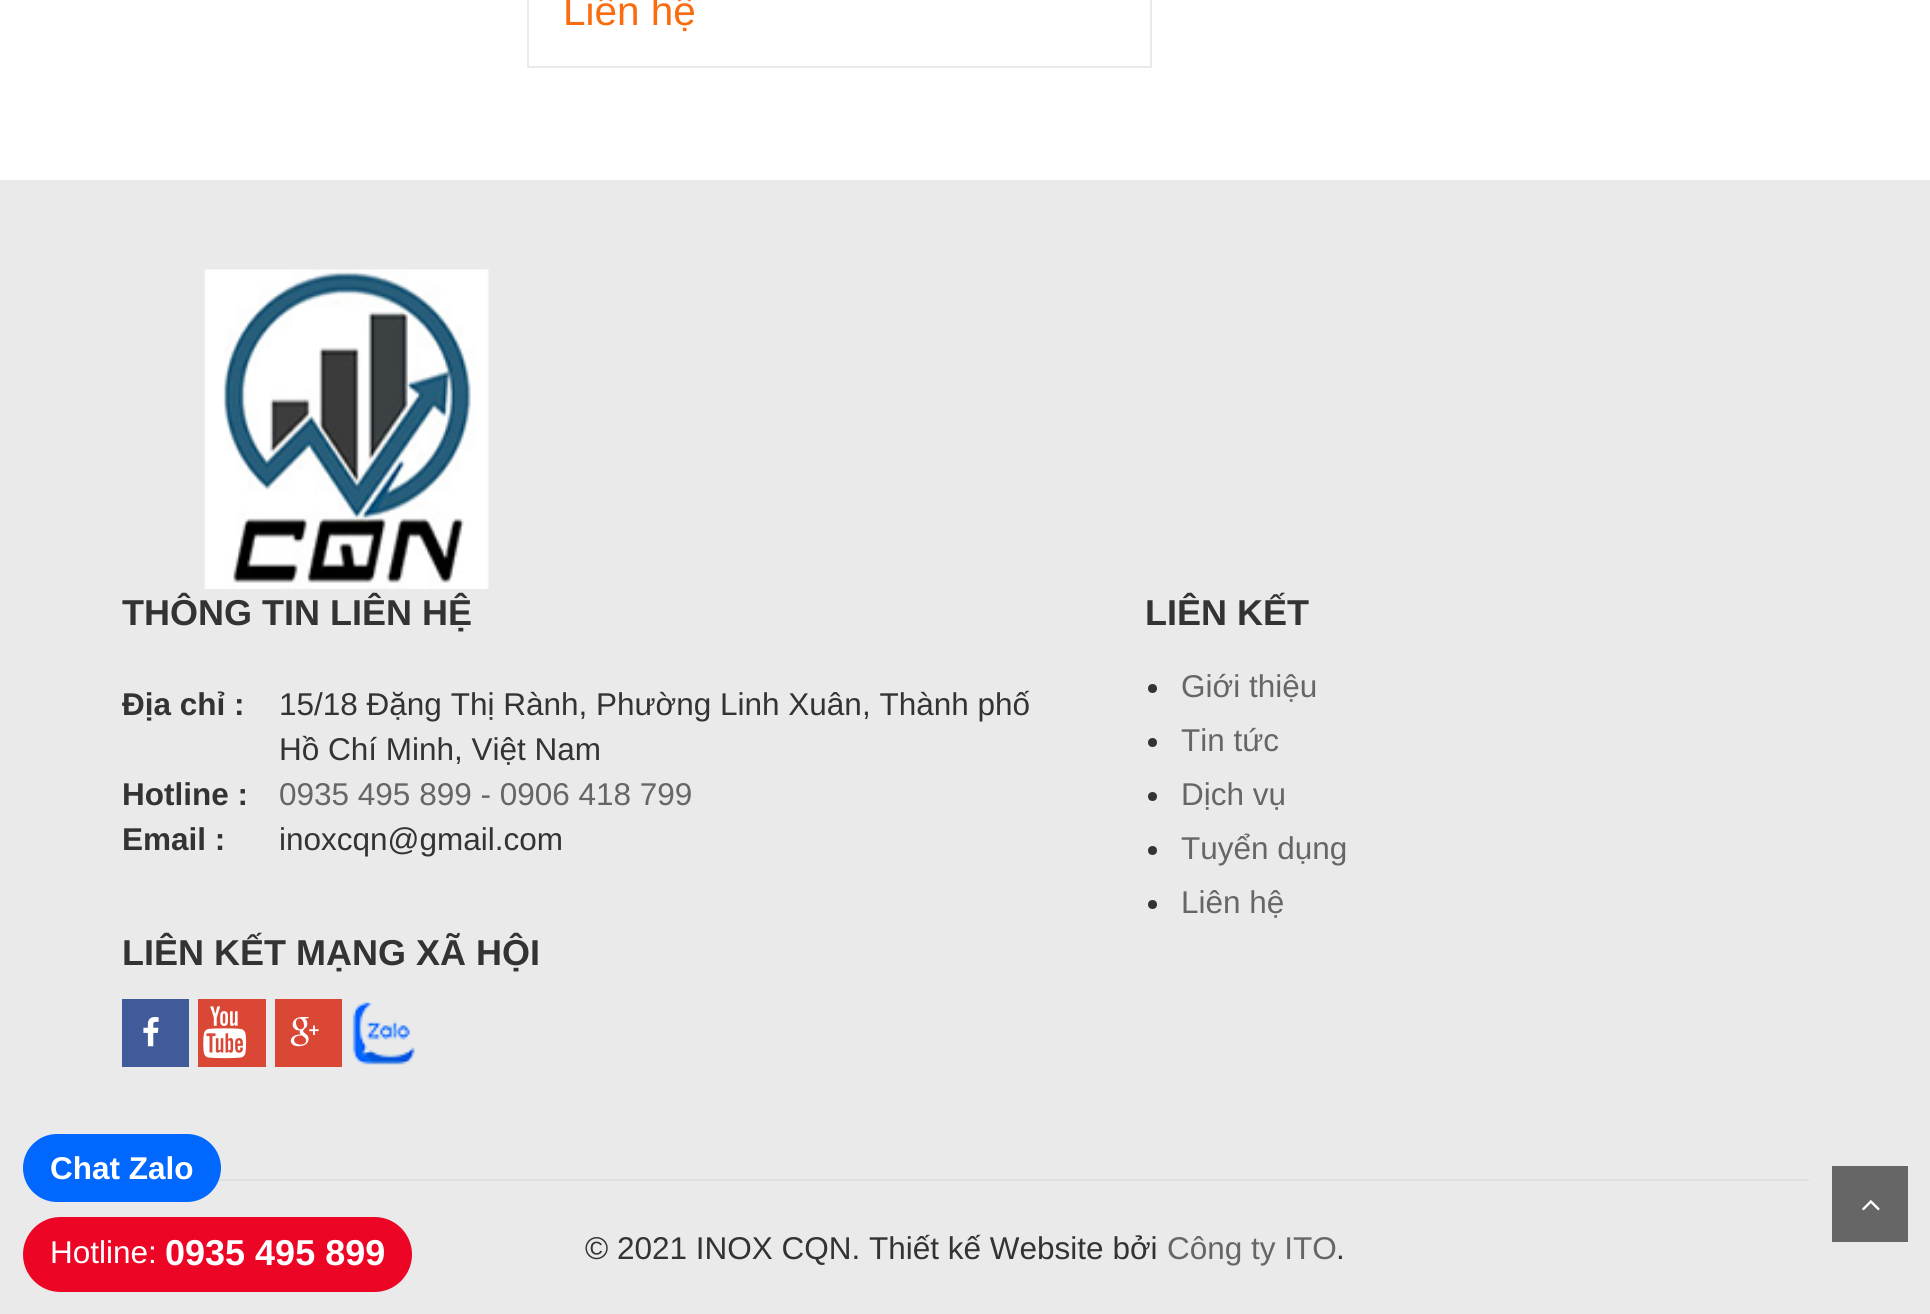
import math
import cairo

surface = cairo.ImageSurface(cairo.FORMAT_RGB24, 1930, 1314)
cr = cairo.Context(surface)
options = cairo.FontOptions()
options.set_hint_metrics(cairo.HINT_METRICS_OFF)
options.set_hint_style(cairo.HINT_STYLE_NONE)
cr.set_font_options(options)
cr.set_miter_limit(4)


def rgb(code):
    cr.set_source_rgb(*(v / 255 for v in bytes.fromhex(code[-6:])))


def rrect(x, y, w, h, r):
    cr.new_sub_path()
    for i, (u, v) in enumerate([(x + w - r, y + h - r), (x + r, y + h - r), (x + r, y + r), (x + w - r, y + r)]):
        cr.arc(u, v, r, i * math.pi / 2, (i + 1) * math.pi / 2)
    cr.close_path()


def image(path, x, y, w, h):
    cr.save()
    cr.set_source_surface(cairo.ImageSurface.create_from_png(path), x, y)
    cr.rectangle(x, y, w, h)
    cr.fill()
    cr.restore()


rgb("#ffffff")
cr.paint()
cr.rectangle(528, -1, 623, 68)
rgb("#eaeaea")
cr.stroke()
cr.rectangle(0, 180, 1930, 1134)
cr.fill()
image("img/1.png", 204, 269, 285, 320)
rgb("#333333")
cr.arc(1152.5, 688.5, 4.5, 0, 2 * math.pi)
cr.fill()
cr.arc(1152.5, 742.5, 4.5, 0, 2 * math.pi)
cr.fill()
cr.arc(1152.5, 796.5, 4.5, 0, 2 * math.pi)
cr.fill()
cr.arc(1152.5, 850.5, 4.5, 0, 2 * math.pi)
cr.fill()
cr.arc(1152.5, 904.5, 4.5, 0, 2 * math.pi)
cr.fill()
rgb("#415a99")
cr.rectangle(122, 999, 67, 68)
cr.fill()
image("img/2.png", 143, 1017, 16, 30)
rgb("#da4735")
cr.rectangle(198, 999, 68, 68)
cr.fill()
image("img/3.png", 203, 1006, 44, 53)
cr.rectangle(275, 999, 67, 68)
cr.fill()
image("img/4.png", 290, 1017, 29, 30)
image("img/5.png", 352, 1002, 63, 63)
rgb("#e1e1e1")
cr.rectangle(218, 1179, 1591, 2)
cr.fill()
rgb("#0068ff")
rrect(23, 1134, 198, 68, 34)
cr.fill()
rgb("#666666")
cr.rectangle(1832, 1166, 76, 76)
cr.fill()
image("img/6.png", 1862, 1200, 18, 11)
rgb("#ec0525")
rrect(23, 1217, 389, 75, 37.5)
cr.fill()
cr.select_font_face("Liberation Sans")
cr.set_font_size(40.5)
rgb("#f96d10")
cr.move_to(563, 25)
cr.show_text("Liên hệ")
cr.select_font_face("Liberation Sans", cairo.FONT_SLANT_NORMAL, cairo.FONT_WEIGHT_BOLD)
cr.set_font_size(36)
rgb("#333333")
cr.move_to(122, 625)
cr.show_text("THÔNG TIN LIÊN HỆ")
cr.set_font_size(31.5)
cr.move_to(122, 715)
cr.show_text("Địa chỉ :")
cr.select_font_face("Liberation Sans")
cr.move_to(279, 715)
cr.show_text("15/18 Đặng Thị Rành, Phường Linh Xuân, Thành phố")
cr.move_to(279, 760)
cr.show_text("Hồ Chí Minh, Việt Nam")
cr.select_font_face("Liberation Sans", cairo.FONT_SLANT_NORMAL, cairo.FONT_WEIGHT_BOLD)
cr.move_to(122, 805)
cr.show_text("Hotline :")
cr.select_font_face("Liberation Sans")
rgb("#666666")
cr.move_to(279, 805)
cr.show_text("0935 495 899 - 0906 418 799")
cr.select_font_face("Liberation Sans", cairo.FONT_SLANT_NORMAL, cairo.FONT_WEIGHT_BOLD)
rgb("#333333")
cr.move_to(122, 850)
cr.show_text("Email :")
cr.select_font_face("Liberation Sans")
cr.move_to(279, 850)
cr.show_text("inoxcqn@gmail.com")
cr.select_font_face("Liberation Sans", cairo.FONT_SLANT_NORMAL, cairo.FONT_WEIGHT_BOLD)
cr.set_font_size(36)
cr.move_to(1145, 625)
cr.show_text("LIÊN KẾT")
cr.select_font_face("Liberation Sans")
cr.set_font_size(31.5)
rgb("#666666")
for x, y, s in [
    (1181, 697, "Giới thiệu"),
    (1181, 751, "Tin tức"),
    (1181, 805, "Dịch vụ"),
    (1181, 859, "Tuyển dụng"),
    (1181, 913, "Liên hệ"),
]:
    cr.move_to(x, y)
    cr.show_text(s)
cr.select_font_face("Liberation Sans", cairo.FONT_SLANT_NORMAL, cairo.FONT_WEIGHT_BOLD)
cr.set_font_size(36)
rgb("#333333")
cr.move_to(122, 965)
cr.show_text("LIÊN KẾT MẠNG XÃ HỘI")
cr.select_font_face("Liberation Sans")
cr.set_font_size(31.5)
cr.move_to(585, 1259)
cr.show_text("© 2021 INOX CQN. Thiết kế Website bởi")
rgb("#666666")
cr.move_to(1167, 1259)
cr.show_text("Công ty ITO")
rgb("#333333")
cr.move_to(1336, 1259)
cr.show_text(".")
cr.select_font_face("Liberation Sans", cairo.FONT_SLANT_NORMAL, cairo.FONT_WEIGHT_BOLD)
rgb("#ffffff")
cr.move_to(50, 1179)
cr.show_text("Chat Zalo")
cr.select_font_face("Liberation Sans")
cr.move_to(50, 1263)
cr.show_text("Hotline:")
cr.select_font_face("Liberation Sans", cairo.FONT_SLANT_NORMAL, cairo.FONT_WEIGHT_BOLD)
cr.set_font_size(36)
cr.move_to(165, 1265)
cr.show_text("0935 495 899")
surface.write_to_png("page.png")
